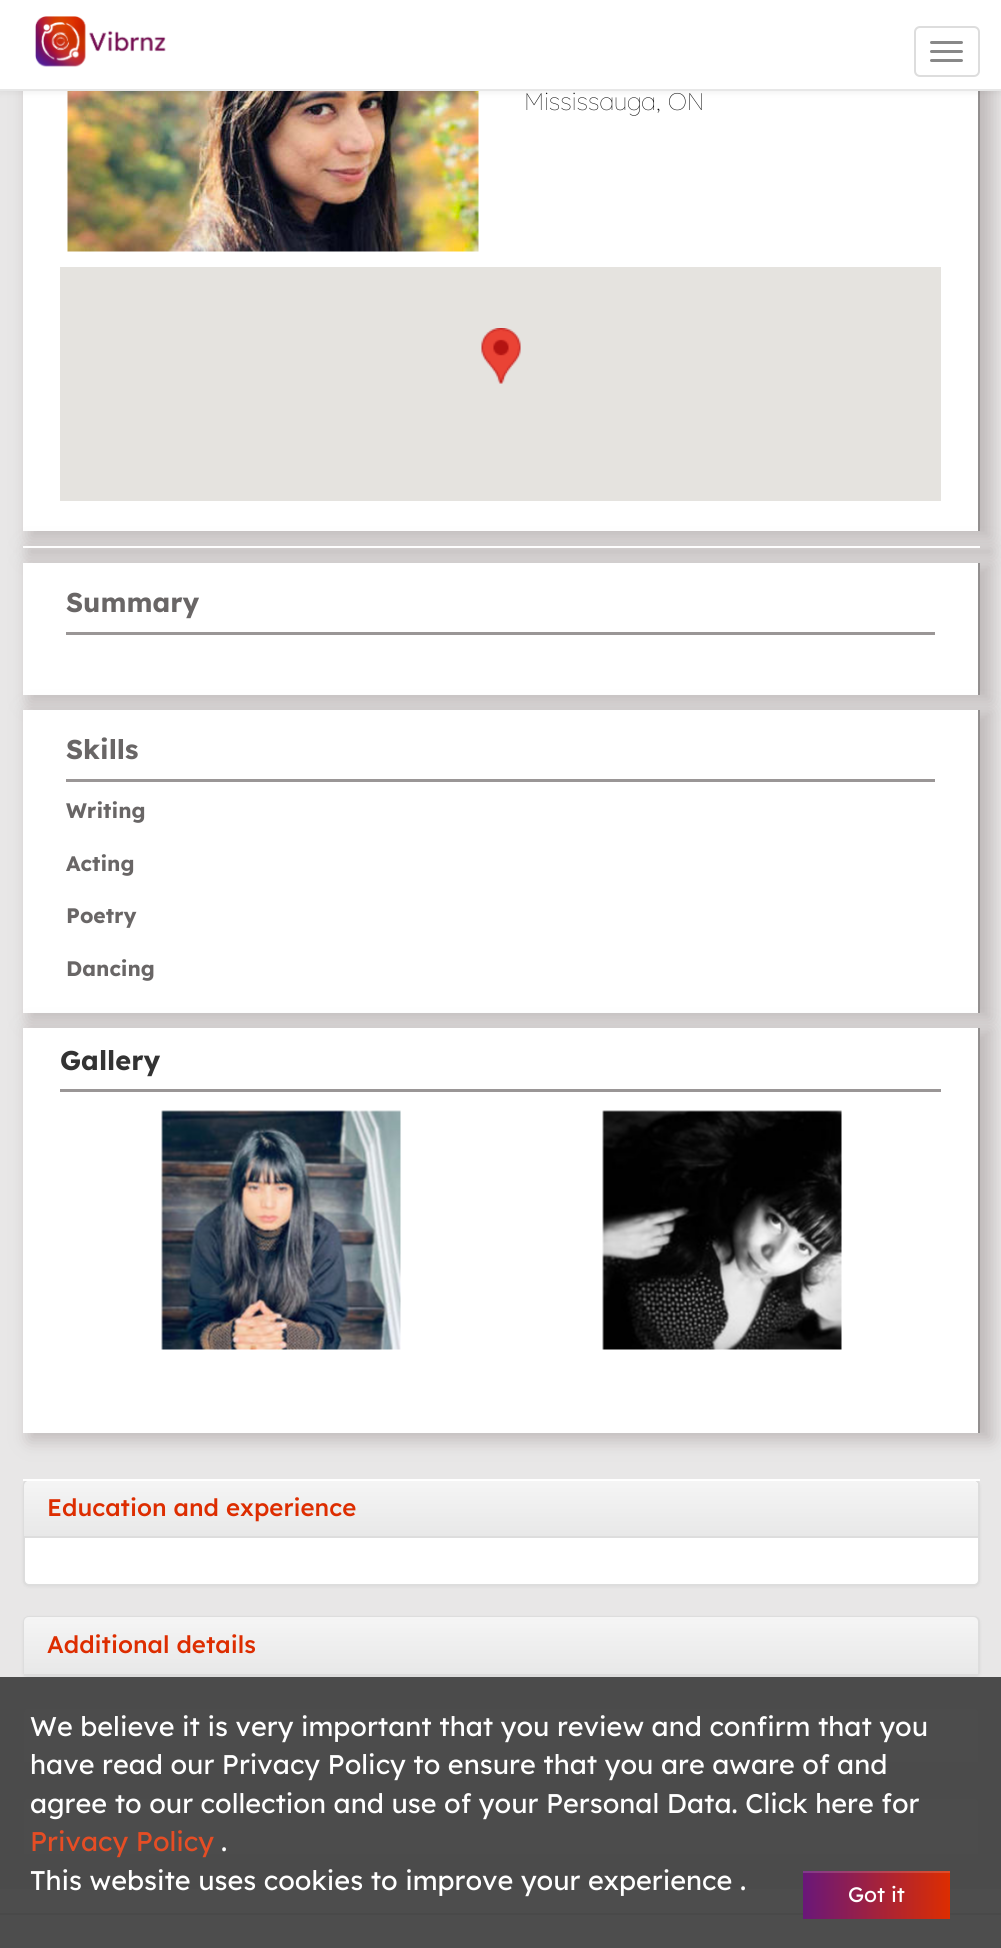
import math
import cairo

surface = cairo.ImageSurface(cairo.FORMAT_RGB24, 1001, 1948)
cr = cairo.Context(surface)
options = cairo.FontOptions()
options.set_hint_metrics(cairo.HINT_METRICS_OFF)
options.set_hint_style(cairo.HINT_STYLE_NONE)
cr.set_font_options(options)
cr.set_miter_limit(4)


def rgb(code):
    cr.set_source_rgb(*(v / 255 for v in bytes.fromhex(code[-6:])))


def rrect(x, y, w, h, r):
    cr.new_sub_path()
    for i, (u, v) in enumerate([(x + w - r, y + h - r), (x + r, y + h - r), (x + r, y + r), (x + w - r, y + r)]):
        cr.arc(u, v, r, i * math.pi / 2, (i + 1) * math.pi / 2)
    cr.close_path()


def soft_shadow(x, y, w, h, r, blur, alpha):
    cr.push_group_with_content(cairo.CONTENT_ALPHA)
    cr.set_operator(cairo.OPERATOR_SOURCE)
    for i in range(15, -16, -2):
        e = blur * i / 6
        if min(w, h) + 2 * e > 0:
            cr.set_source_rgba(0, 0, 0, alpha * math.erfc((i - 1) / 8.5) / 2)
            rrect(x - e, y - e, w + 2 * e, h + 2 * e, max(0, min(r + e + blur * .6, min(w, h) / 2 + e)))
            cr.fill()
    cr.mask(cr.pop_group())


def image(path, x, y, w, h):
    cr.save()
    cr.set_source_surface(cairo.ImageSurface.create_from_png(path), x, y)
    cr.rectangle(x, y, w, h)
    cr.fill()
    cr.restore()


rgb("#ffffff")
cr.paint()
rgb("#e8e7e7")
cr.rectangle(0, 91, 1001, 1798)
cr.fill()
rgb("#bfb9b9")
soft_shadow(29, -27, 963, 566, 0, 9, 1)
rgb("#ffffff")
cr.rectangle(23, 91, 955, 440)
cr.fill()
rgb("#928f8f")
cr.rectangle(978, 91, 2, 440)
cr.fill()
image("img/2.png", 67, 91, 412, 161)
rgb("#000000")
soft_shadow(0, 2, 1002, 90, 0, 4, 0.07)
rgb("#ffffff")
cr.rectangle(0, 0, 1001, 89)
cr.fill()
rgb("#e7e7e7")
cr.rectangle(0, 89, 1001, 2)
cr.fill()
image("img/1.png", 35, 16, 131, 51)
rrect(915, 27, 64, 49, 5)
rgb("#dddddd")
cr.stroke()
rgb("#888888")
rrect(930, 41, 33, 3, 1.5)
cr.fill()
rrect(930, 50, 33, 3, 1.5)
cr.fill()
rrect(930, 59, 33, 3, 1.5)
cr.fill()
rgb("#e5e3df")
cr.rectangle(60, 267, 881, 234)
cr.fill()
image("img/3.png", 481, 328, 40, 56)
rgb("#bfb9b9")
soft_shadow(29, 548, 963, 7, 0, 9, 1)
rgb("#ffffff")
cr.rectangle(23, 546, 957, 2)
cr.fill()
rgb("#bfb9b9")
soft_shadow(29, 564, 963, 138, 0, 9, 1)
for x, y, w, h, color in [
    (23, 563, 955, 132, "#ffffff"),
    (978, 563, 2, 132, "#928f8f"),
    (66, 632, 869, 3, "#9a9696"),
]:
    rgb(color)
    cr.rectangle(x, y, w, h)
    cr.fill()
rgb("#bfb9b9")
soft_shadow(29, 711, 963, 309, 0, 9, 1)
for x, y, w, h, color in [
    (23, 710, 955, 303, "#ffffff"),
    (978, 710, 2, 303, "#928f8f"),
    (66, 779, 869, 3, "#9a9696"),
]:
    rgb(color)
    cr.rectangle(x, y, w, h)
    cr.fill()
rgb("#bfb9b9")
soft_shadow(29, 1029, 963, 411, 0, 9, 1)
for x, y, w, h, color in [
    (23, 1028, 955, 405, "#ffffff"),
    (978, 1028, 2, 405, "#928f8f"),
    (60, 1089, 881, 3, "#9a9696"),
]:
    rgb(color)
    cr.rectangle(x, y, w, h)
    cr.fill()
image("img/4.png", 161, 1110, 240, 240)
image("img/5.png", 602, 1110, 240, 240)
rgb("#000000")
soft_shadow(23, 1481, 957, 106, 6, 1.5, 0.05)
rgb("#ffffff")
rrect(24, 1480, 955, 105, 5)
cr.fill_preserve()
rgb("#dddddd")
cr.stroke()
rgb("#ffffff")
cr.rectangle(23, 1479, 957, 2)
cr.fill()
gradient = cairo.LinearGradient(501, 1481, 501, 1536)
gradient.add_color_stop_rgba(0, 0.961, 0.961, 0.961, 1)
gradient.add_color_stop_rgba(1, 0.91, 0.91, 0.91, 1)
cr.set_source(gradient)
cr.new_path()
cr.move_to(29, 1481)
cr.line_to(973, 1481)
cr.curve_to(976, 1481, 978, 1483, 978, 1486)
cr.line_to(978, 1536)
cr.line_to(24, 1536)
cr.line_to(24, 1486)
cr.curve_to(24, 1483, 26, 1481, 29, 1481)
cr.close_path()
cr.fill()
rgb("#dddddd")
cr.rectangle(24, 1536, 954, 2)
cr.fill()
rgb("#000000")
soft_shadow(23, 1617, 957, 62, 6, 1.5, 0.05)
rrect(24, 1617, 955, 59, 5)
rgb("#dddddd")
cr.stroke()
gradient = cairo.LinearGradient(501, 1617, 501, 1674)
gradient.add_color_stop_rgba(0, 0.961, 0.961, 0.961, 1)
gradient.add_color_stop_rgba(1, 0.91, 0.91, 0.91, 1)
cr.set_source(gradient)
cr.new_path()
cr.move_to(29, 1617)
cr.line_to(973, 1617)
cr.curve_to(976, 1617, 978, 1619, 978, 1622)
cr.line_to(978, 1674)
cr.line_to(24, 1674)
cr.line_to(24, 1622)
cr.curve_to(24, 1619, 26, 1617, 29, 1617)
cr.close_path()
cr.fill()
rgb("#dddddd")
cr.rectangle(24, 1675, 1, 1)
cr.fill()
rgb("#000000")
soft_shadow(23, 1709, 957, 60, 6, 1.5, 0.05)
rgb("#ffffff")
rrect(24, 1708, 955, 58, 5)
cr.fill_preserve()
rgb("#dddddd")
cr.stroke()
gradient = cairo.LinearGradient(501, 1709, 501, 1764)
gradient.add_color_stop_rgba(0, 0.961, 0.961, 0.961, 1)
gradient.add_color_stop_rgba(1, 0.91, 0.91, 0.91, 1)
cr.set_source(gradient)
cr.new_path()
cr.move_to(29, 1709)
cr.line_to(973, 1709)
cr.curve_to(976, 1709, 978, 1711, 978, 1714)
cr.line_to(978, 1764)
cr.line_to(24, 1764)
cr.line_to(24, 1714)
cr.curve_to(24, 1711, 26, 1709, 29, 1709)
cr.close_path()
cr.fill()
rgb("#dddddd")
cr.rectangle(24, 1764, 954, 2)
cr.fill()
rgb("#000000")
soft_shadow(23, 1799, 957, 61, 6, 1.5, 0.05)
rgb("#ffffff")
rrect(24, 1798, 955, 60, 5)
cr.fill_preserve()
rgb("#dddddd")
cr.stroke()
gradient = cairo.LinearGradient(501, 1799, 501, 1856)
gradient.add_color_stop_rgba(0, 0.961, 0.961, 0.961, 1)
gradient.add_color_stop_rgba(1, 0.91, 0.91, 0.91, 1)
cr.set_source(gradient)
cr.new_path()
cr.move_to(29, 1799)
cr.line_to(973, 1799)
cr.curve_to(976, 1799, 978, 1801, 978, 1804)
cr.line_to(978, 1856)
cr.line_to(24, 1856)
cr.line_to(24, 1804)
cr.curve_to(24, 1801, 26, 1799, 29, 1799)
cr.close_path()
cr.fill()
rgb("#dddddd")
cr.rectangle(24, 1856, 954, 2)
cr.fill()
rgb("#c3c1c1")
cr.rectangle(0, 1913, 1001, 2)
cr.fill()
cr.set_source_rgba(0.255, 0.255, 0.255, 0.93)
cr.rectangle(0, 1677, 1001, 271)
cr.fill()
gradient = cairo.LinearGradient(950, 1895, 803, 1895)
gradient.add_color_stop_rgba(0, 0.867, 0.176, 0, 1)
gradient.add_color_stop_rgba(1, 0.412, 0.09, 0.475, 1)
cr.set_source(gradient)
cr.rectangle(803, 1871, 147, 48)
cr.fill()
cr.set_source_rgba(1, 1, 1, 0.15)
cr.rectangle(803, 1871, 147, 2)
cr.fill()
cr.select_font_face("Lexend Thin")
cr.set_font_size(24)
rgb("#0a0a0a")
cr.move_to(524, 110)
cr.show_text("Mississauga, ON")
cr.select_font_face("Lexend", cairo.FONT_SLANT_NORMAL, cairo.FONT_WEIGHT_BOLD)
cr.set_font_size(27)
rgb("#696666")
cr.move_to(66, 612)
cr.show_text("Summary")
cr.move_to(66, 759)
cr.show_text("Skills")
cr.set_font_size(21)
for x, y, s in [
    (66, 818, "Writing"),
    (66, 871, "Acting"),
    (66, 923, "Poetry"),
    (66, 976, "Dancing"),
]:
    cr.move_to(x, y)
    cr.show_text(s)
cr.set_font_size(27)
rgb("#333333")
cr.move_to(60, 1070)
cr.show_text("Gallery")
cr.select_font_face("Lexend Medium")
cr.set_font_size(24)
rgb("#dd2d00")
cr.move_to(47, 1516)
cr.show_text("Education and experience")
cr.move_to(47, 1653)
cr.show_text("Additional details")
cr.select_font_face("Lexend")
cr.set_font_size(27)
rgb("#ffffff")
for x, y, s in [
    (30, 1736, "We believe it is very important that you review and confirm that you"),
    (30, 1774, "have read our Privacy Policy to ensure that you are aware of and"),
    (30, 1813, "agree to our collection and use of your Personal Data. Click here for"),
]:
    cr.move_to(x, y)
    cr.show_text(s)
rgb("#e64d24")
cr.move_to(30, 1851)
cr.show_text("Privacy Policy")
rgb("#ffffff")
cr.move_to(221, 1851)
cr.show_text(".")
cr.move_to(30, 1890)
cr.show_text("This website uses cookies to improve your experience .")
cr.set_font_size(21)
cr.move_to(848, 1902)
cr.show_text("Got it")
surface.write_to_png("page.png")
